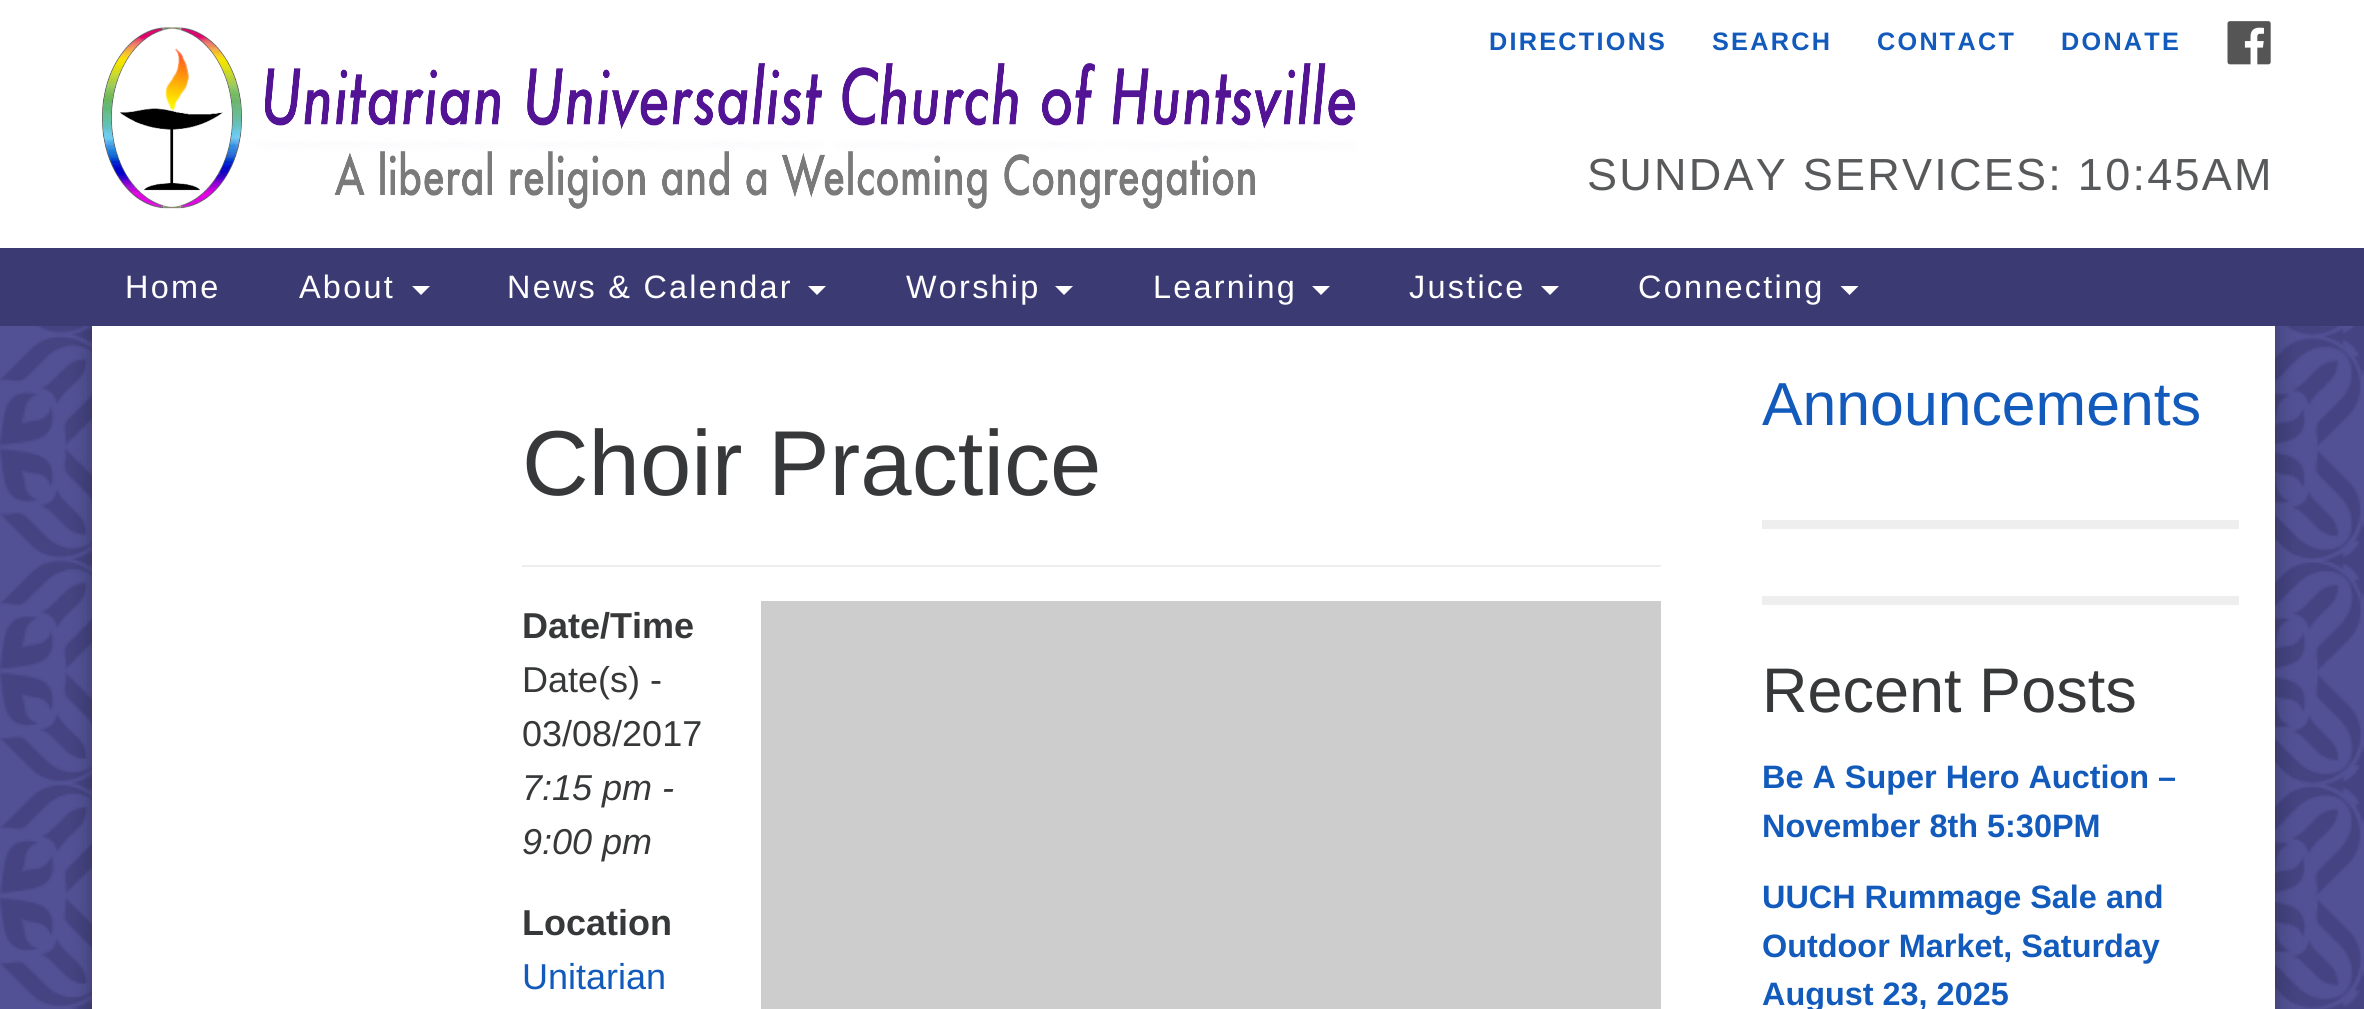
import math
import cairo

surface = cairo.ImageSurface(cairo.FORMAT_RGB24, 2364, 1009)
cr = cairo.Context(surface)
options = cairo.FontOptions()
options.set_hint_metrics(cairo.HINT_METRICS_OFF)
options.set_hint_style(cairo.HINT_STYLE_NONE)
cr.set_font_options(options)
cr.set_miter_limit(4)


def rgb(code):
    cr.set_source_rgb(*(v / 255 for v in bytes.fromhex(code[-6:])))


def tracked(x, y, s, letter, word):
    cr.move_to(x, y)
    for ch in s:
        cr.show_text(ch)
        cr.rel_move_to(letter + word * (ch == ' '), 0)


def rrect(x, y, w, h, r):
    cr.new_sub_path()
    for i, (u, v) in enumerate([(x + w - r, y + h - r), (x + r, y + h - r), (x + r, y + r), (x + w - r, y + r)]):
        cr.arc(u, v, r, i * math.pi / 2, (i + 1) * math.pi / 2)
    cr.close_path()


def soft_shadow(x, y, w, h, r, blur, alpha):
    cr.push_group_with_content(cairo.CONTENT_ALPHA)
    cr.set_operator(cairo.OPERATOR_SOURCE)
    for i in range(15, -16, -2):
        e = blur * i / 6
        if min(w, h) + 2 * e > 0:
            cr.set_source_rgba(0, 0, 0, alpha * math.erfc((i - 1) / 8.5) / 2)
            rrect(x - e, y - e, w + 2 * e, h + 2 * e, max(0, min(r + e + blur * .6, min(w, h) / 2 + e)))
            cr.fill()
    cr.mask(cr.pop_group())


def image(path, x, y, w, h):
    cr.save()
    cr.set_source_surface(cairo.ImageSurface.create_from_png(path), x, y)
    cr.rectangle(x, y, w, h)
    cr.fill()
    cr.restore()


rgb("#ffffff")
cr.paint()
image("img/1.png", 0, 326, 2364, 683)
image("img/2.png", 102, 27, 1254, 182)
image("img/3.png", 2227, 21, 44, 44)
rgb("#000000")
soft_shadow(92, 326, 2183, 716, 0, 11, 0.3)
rgb("#3c3a73")
cr.rectangle(0, 248, 2364, 78)
cr.fill()
rgb("#ffffff")
cr.new_path()
cr.move_to(412, 286)
cr.line_to(430, 286)
cr.line_to(421, 295)
cr.close_path()
cr.fill()
cr.new_path()
cr.move_to(808, 286)
cr.line_to(826, 286)
cr.line_to(817, 295)
cr.close_path()
cr.fill()
cr.new_path()
cr.move_to(1055, 286)
cr.line_to(1073, 286)
cr.line_to(1064, 295)
cr.close_path()
cr.fill()
cr.new_path()
cr.move_to(1312, 286)
cr.line_to(1330, 286)
cr.line_to(1321, 295)
cr.close_path()
cr.fill()
cr.new_path()
cr.move_to(1541, 286)
cr.line_to(1559, 286)
cr.line_to(1550, 295)
cr.close_path()
cr.fill()
cr.new_path()
cr.move_to(1840.5, 286)
cr.line_to(1858.5, 286)
cr.line_to(1849.5, 295)
cr.close_path()
cr.fill()
for x, y, w, h, color in [
    (92, 326, 2183, 683, "#ffffff"),
    (522, 565, 1139, 2, "#eeeeee"),
    (761, 601, 900, 408, "#cdcdcd"),
    (1762, 520, 477, 9, "#eeeeee"),
    (1762, 596, 477, 9, "#eeeeee"),
]:
    rgb(color)
    cr.rectangle(x, y, w, h)
    cr.fill()
cr.select_font_face("Liberation Sans", cairo.FONT_SLANT_NORMAL, cairo.FONT_WEIGHT_BOLD)
cr.set_font_size(25.25)
rgb("#125abb")
for x, y, s in [
    (1489, 50, "DIRECTIONS"),
    (1712, 50, "SEARCH"),
    (1877, 50, "CONTACT"),
    (2061, 50, "DONATE"),
]:
    tracked(x, y, s, 2.25, 0)
cr.select_font_face("Liberation Sans")
cr.set_font_size(45)
rgb("#58595b")
tracked(1587, 190, "SUNDAY SERVICES: 10:45AM", 2.25, 0)
cr.set_font_size(32.4)
rgb("#ffffff")
for x, y, s in [
    (125, 298, "Home"),
    (299, 298, "About"),
    (507, 298, "News & Calendar"),
    (906, 298, "Worship"),
    (1153, 298, "Learning"),
    (1409, 298, "Justice"),
    (1638, 298, "Connecting"),
]:
    tracked(x, y, s, 2.25, 0)
cr.set_font_size(92.25)
rgb("#373839")
cr.move_to(522, 495)
cr.show_text("Choir Practice")
cr.select_font_face("Liberation Sans", cairo.FONT_SLANT_NORMAL, cairo.FONT_WEIGHT_BOLD)
cr.set_font_size(36)
cr.move_to(522, 638)
cr.show_text("Date/Time")
cr.select_font_face("Liberation Sans")
cr.move_to(522, 692)
cr.show_text("Date(s) -")
cr.move_to(522, 746)
cr.show_text("03/08/2017")
cr.select_font_face("Liberation Sans", cairo.FONT_SLANT_ITALIC)
cr.move_to(522, 800)
cr.show_text("7:15 pm -")
cr.move_to(522, 854)
cr.show_text("9:00 pm")
cr.select_font_face("Liberation Sans", cairo.FONT_SLANT_NORMAL, cairo.FONT_WEIGHT_BOLD)
cr.move_to(522, 935)
cr.show_text("Location")
cr.select_font_face("Liberation Sans")
rgb("#125abb")
cr.move_to(522, 989)
cr.show_text("Unitarian")
cr.set_font_size(60.75)
cr.move_to(1762, 425)
cr.show_text("Announcements")
cr.set_font_size(63)
rgb("#373839")
cr.move_to(1762, 712)
cr.show_text("Recent Posts")
cr.select_font_face("Liberation Sans", cairo.FONT_SLANT_NORMAL, cairo.FONT_WEIGHT_BOLD)
cr.set_font_size(32.4)
rgb("#125abb")
for x, y, s in [
    (1762, 788, "Be A Super Hero Auction –"),
    (1762, 837, "November 8th 5:30PM"),
    (1762, 908, "UUCH Rummage Sale and"),
    (1762, 957, "Outdoor Market, Saturday"),
    (1762, 1005, "August 23, 2025"),
]:
    cr.move_to(x, y)
    cr.show_text(s)
surface.write_to_png("page.png")
